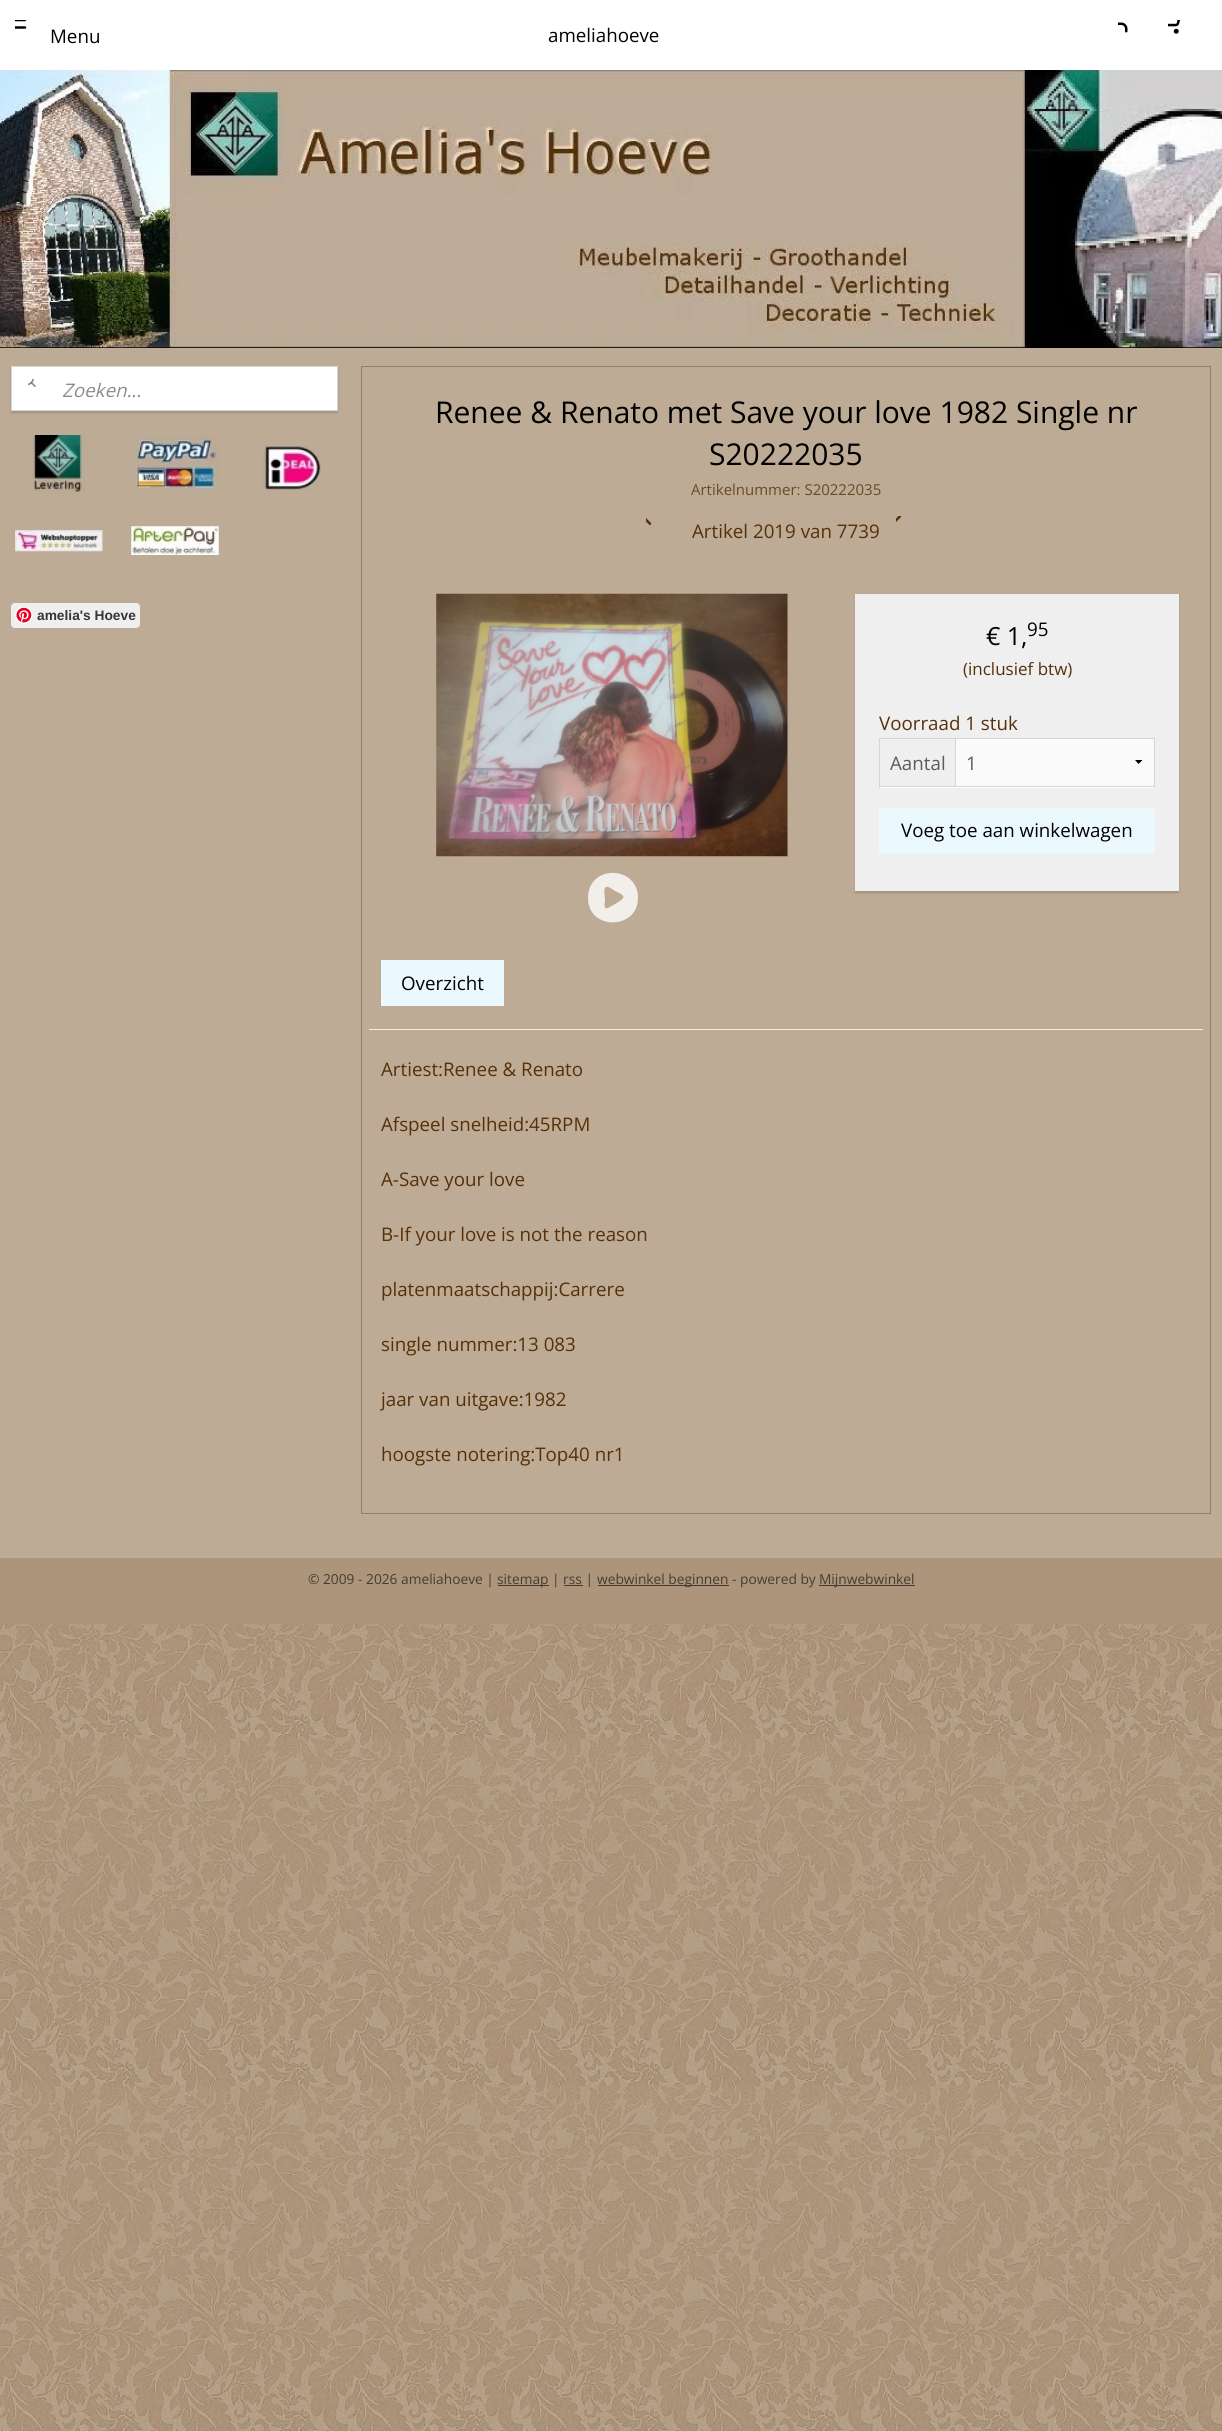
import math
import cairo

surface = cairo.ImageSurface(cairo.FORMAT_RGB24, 1222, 2431)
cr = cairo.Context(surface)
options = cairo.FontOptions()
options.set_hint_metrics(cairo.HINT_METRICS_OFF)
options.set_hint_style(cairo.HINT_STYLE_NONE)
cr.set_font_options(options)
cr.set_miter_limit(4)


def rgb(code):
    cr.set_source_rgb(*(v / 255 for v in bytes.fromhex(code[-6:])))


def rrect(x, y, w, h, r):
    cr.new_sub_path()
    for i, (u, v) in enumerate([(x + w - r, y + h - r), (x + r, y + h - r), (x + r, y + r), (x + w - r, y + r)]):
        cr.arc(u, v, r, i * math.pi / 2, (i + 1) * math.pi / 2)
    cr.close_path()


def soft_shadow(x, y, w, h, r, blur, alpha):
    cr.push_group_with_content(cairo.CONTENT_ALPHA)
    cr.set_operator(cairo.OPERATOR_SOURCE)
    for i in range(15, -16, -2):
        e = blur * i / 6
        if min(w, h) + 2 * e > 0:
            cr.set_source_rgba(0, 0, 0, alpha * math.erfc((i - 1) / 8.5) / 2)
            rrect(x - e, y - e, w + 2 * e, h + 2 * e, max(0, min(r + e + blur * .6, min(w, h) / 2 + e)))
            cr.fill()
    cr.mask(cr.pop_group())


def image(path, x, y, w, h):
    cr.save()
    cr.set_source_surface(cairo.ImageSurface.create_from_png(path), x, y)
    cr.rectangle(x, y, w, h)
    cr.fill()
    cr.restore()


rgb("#ffffff")
cr.paint()
image("img/1.png", 15, 20, 12, 9)
image("img/2.png", 1118, 22, 10, 11)
image("img/3.png", 1168, 20, 12, 14)
rgb("#000000")
cr.rectangle(0, 347, 1222, 1)
cr.fill()
image("img/4.png", 0, 70, 1222, 278)
rgb("#bdab95")
cr.rectangle(0, 348, 1222, 1210)
cr.fill()
rgb("#000000")
soft_shadow(11, 368, 327, 45, 0, 1, 0.15)
rgb("#ffffff")
cr.rectangle(11.5, 366.5, 326, 44)
cr.fill_preserve()
rgb("#d3d5d9")
cr.set_line_width(1)
cr.stroke()
image("img/5.png", 28, 379, 8, 8)
image("img/6.png", 30, 435, 55, 59)
image("img/7.png", 131, 435, 88, 60)
image("img/8.png", 262, 444, 60, 47)
image("img/9.png", 15, 530, 88, 22)
image("img/10.png", 131, 526, 88, 29)
rgb("#efefef")
rrect(11, 603, 129, 25, 4)
cr.fill()
image("img/11.png", 15, 606, 18, 18)
cr.rectangle(361.5, 366.5, 849, 1147)
rgb("#957e65")
cr.stroke()
image("img/12.png", 646, 518, 6, 7)
image("img/13.png", 896, 516, 6, 6)
image("img/14.png", 436, 593, 352, 264)
rgb("#f2eeea")
cr.new_path()
cr.move_to(588, 898)
cr.curve_to(588, 864, 638, 865, 638, 898)
cr.curve_to(638, 930, 588, 931, 588, 898)
cr.close_path()
cr.move_to(606, 887)
cr.curve_to(603, 888, 605, 898, 605, 900)
cr.curve_to(605, 902, 603, 910, 608, 908)
cr.line_to(615, 904)
cr.curve_to(617, 903, 622, 900, 623, 898)
cr.curve_to(625, 895, 617, 892, 615, 891)
cr.curve_to(613, 890, 609, 886, 606, 887)
cr.close_path()
cr.fill()
rgb("#000000")
soft_shadow(855, 595, 324, 298, 0, 1, 0.15)
for x, y, w, h, color in [
    (855, 594, 324, 297, "#efefef"),
    (880, 787, 274, 1, "#ffffff"),
    (955, 738, 1, 48, "#d3d5d9"),
    (879, 738, 276, 1, "#d3d5d9"),
    (1154, 738, 1, 50, "#d3d5d9"),
    (879, 786, 276, 1, "#d3d5d9"),
    (879, 738, 1, 50, "#d3d5d9"),
    (956, 739, 198, 47, "#fafafa"),
]:
    rgb(color)
    cr.rectangle(x, y, w, h)
    cr.fill()
rgb("#000000")
cr.new_path()
cr.move_to(1142.5, 760)
cr.line_to(1138.5, 764)
cr.line_to(1135, 760)
cr.close_path()
cr.fill()
for x, y, w, h, color in [
    (879, 808, 276, 46, "#ebf8fe"),
    (381, 960, 123, 46, "#ebf8fe"),
    (369, 1029, 834, 1, "#efefef"),
]:
    rgb(color)
    cr.rectangle(x, y, w, h)
    cr.fill()
image("img/15.png", 0, 1624, 1222, 807)
for x, y, w, h, color in [
    (0, 1558, 1222, 66, "#ad957b"),
    (498, 1585, 51, 1, "#453c31"),
    (598, 1585, 131, 1, "#453c31"),
    (819, 1585, 96, 1, "#453c31"),
    (564, 1585, 19, 1, "#453c31"),
]:
    rgb(color)
    cr.rectangle(x, y, w, h)
    cr.fill()
cr.select_font_face("Open Sans")
cr.set_font_size(18.75)
rgb("#000000")
cr.move_to(50, 43)
cr.show_text("Menu")
cr.move_to(548, 42)
cr.show_text("ameliahoeve")
cr.select_font_face("Open Sans", cairo.FONT_SLANT_ITALIC)
rgb("#898c91")
cr.move_to(62, 397)
cr.show_text("Zoeken...")
cr.select_font_face("Liberation Sans", cairo.FONT_SLANT_NORMAL, cairo.FONT_WEIGHT_BOLD)
cr.set_font_size(13.75)
rgb("#363636")
cr.move_to(37, 620)
cr.show_text("amelia's Hoeve")
cr.select_font_face("Open Sans")
cr.set_font_size(30)
rgb("#000000")
cr.move_to(435, 423)
cr.show_text("Renee & Renato met Save your love 1982 Single nr")
cr.move_to(709, 465)
cr.show_text("S20222035")
cr.set_font_size(15)
rgb("#6b4924")
cr.move_to(691, 495)
cr.show_text("Artikelnummer: S20222035")
cr.set_font_size(18.75)
rgb("#563008")
cr.move_to(692, 538)
cr.show_text("Artikel 2019 van 7739")
cr.set_font_size(25)
rgb("#000000")
cr.move_to(986, 645)
cr.show_text("€ 1,")
cr.set_font_size(18.75)
cr.move_to(1027, 636)
cr.show_text("95")
cr.set_font_size(17)
rgb("#563008")
cr.move_to(963, 675)
cr.show_text("(inclusief btw)")
cr.set_font_size(18.75)
cr.move_to(879, 730)
cr.show_text("Voorraad 1 stuk")
rgb("#575b62")
cr.move_to(890, 770)
cr.show_text("Aantal")
cr.move_to(966, 770)
cr.show_text("1")
rgb("#000000")
cr.move_to(901, 837)
cr.show_text("Voeg toe aan winkelwagen")
cr.move_to(401, 990)
cr.show_text("Overzicht")
rgb("#563008")
for x, y, s in [
    (381, 1076, "Artiest:Renee & Renato"),
    (381, 1131, "Afspeel snelheid:45RPM"),
    (381, 1186, "A-Save your love"),
    (381, 1241, "B-If your love is not the reason"),
    (381, 1296, "platenmaatschappij:Carrere"),
    (381, 1351, "single nummer:13 083"),
    (381, 1406, "jaar van uitgave:1982"),
    (381, 1461, "hoogste notering:Top40 nr1"),
]:
    cr.move_to(x, y)
    cr.show_text(s)
cr.set_font_size(13.75)
rgb("#453c31")
for x, y, s in [
    (308, 1584, "© 2009 - 2026 ameliahoeve |"),
    (497, 1584, "sitemap"),
    (552, 1584, "| rss |"),
    (597, 1584, "webwinkel beginnen"),
    (732, 1584, "- powered by"),
    (819, 1584, "Mijnwebwinkel"),
]:
    cr.move_to(x, y)
    cr.show_text(s)
surface.write_to_png("page.png")
